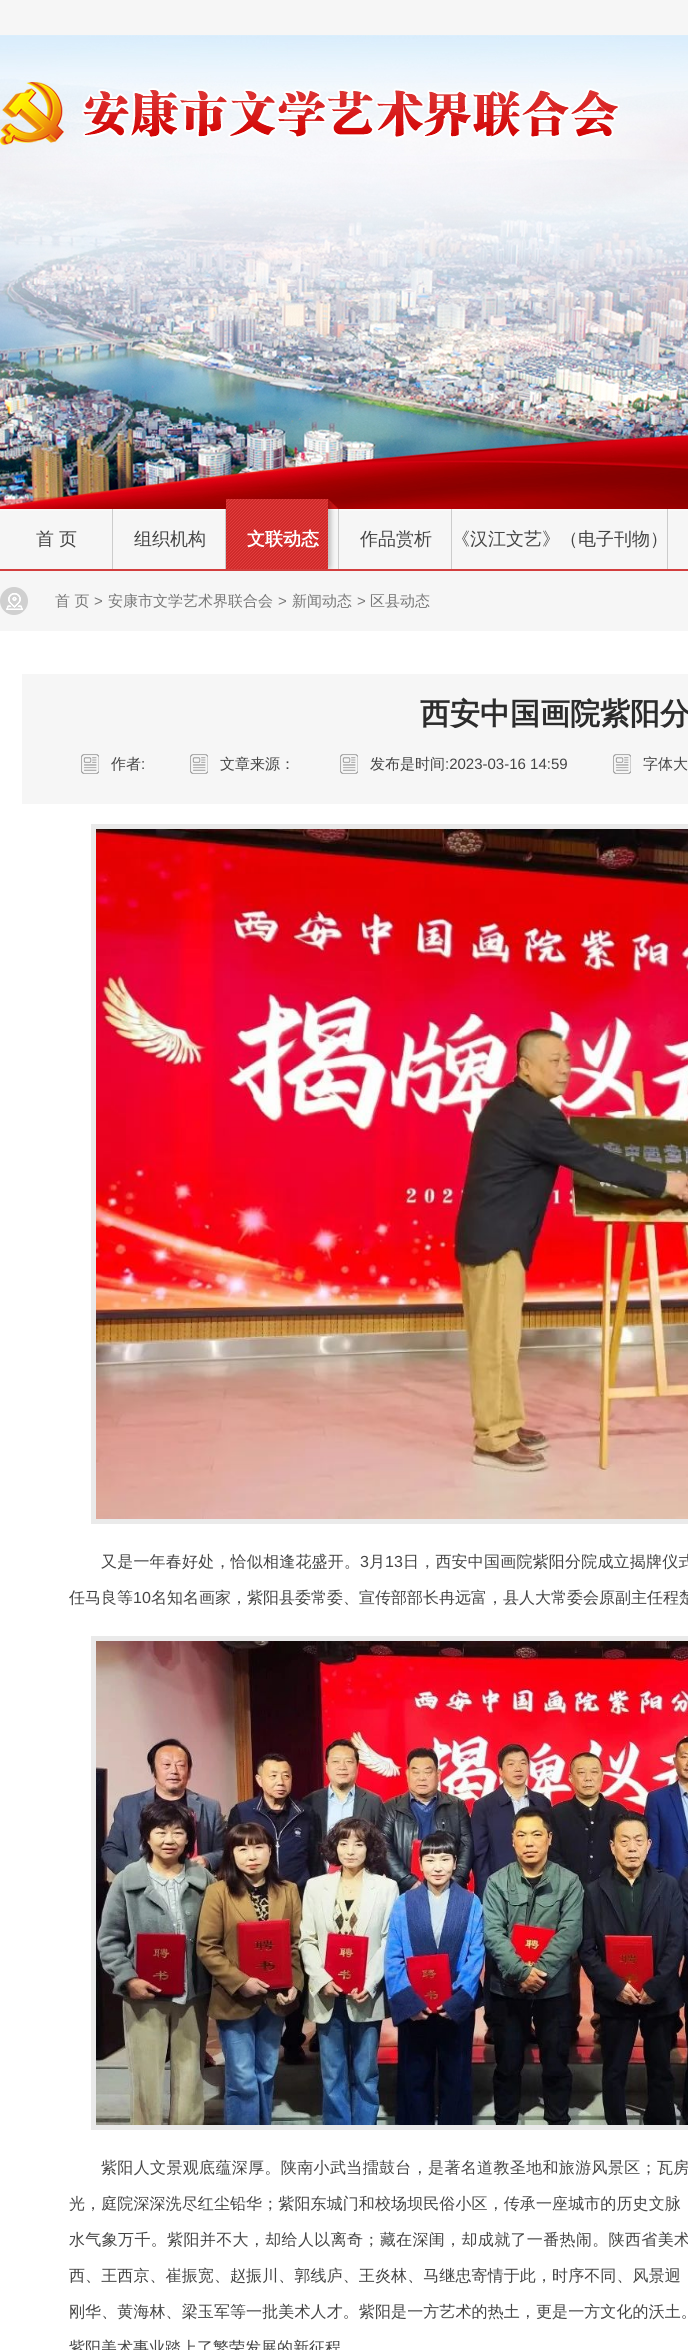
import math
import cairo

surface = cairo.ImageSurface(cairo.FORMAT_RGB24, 688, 2350)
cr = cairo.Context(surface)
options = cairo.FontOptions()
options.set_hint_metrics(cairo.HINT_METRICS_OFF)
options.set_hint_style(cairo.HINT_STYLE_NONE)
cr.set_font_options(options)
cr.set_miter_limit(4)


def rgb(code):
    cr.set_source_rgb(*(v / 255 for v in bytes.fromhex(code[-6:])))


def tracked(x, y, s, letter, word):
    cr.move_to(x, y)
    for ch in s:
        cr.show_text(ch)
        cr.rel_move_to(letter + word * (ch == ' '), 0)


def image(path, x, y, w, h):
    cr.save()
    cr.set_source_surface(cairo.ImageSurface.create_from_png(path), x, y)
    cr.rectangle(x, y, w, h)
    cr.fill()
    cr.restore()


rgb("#f6f6f6")
cr.paint()
image("img/1.png", 0, 35, 688, 474)
image("img/2.png", 0, 82, 620, 63)
for x, y, w, h, color in [
    (0, 509, 688, 2, "#f9f9f9"),
    (0, 569, 688, 2, "#d33e3e"),
    (112, 509, 1, 60, "#cccccc"),
    (225, 509, 1, 60, "#cccccc"),
    (338, 509, 1, 60, "#cccccc"),
]:
    rgb(color)
    cr.rectangle(x, y, w, h)
    cr.fill()
image("img/3.png", 226, 499, 113, 70)
cr.rectangle(451, 509, 1, 60)
cr.fill()
cr.rectangle(667, 509, 1, 60)
cr.fill()
image("img/4.png", 0, 587, 28, 28)
rgb("#ffffff")
cr.rectangle(0, 631, 688, 1719)
cr.fill()
rgb("#f6f6f6")
cr.rectangle(22, 674, 666, 130)
cr.fill()
image("img/5.png", 81, 754, 18, 20)
image("img/5.png", 190, 754, 18, 20)
image("img/5.png", 340, 754, 18, 20)
image("img/5.png", 613, 754, 18, 20)
cr.rectangle(93.5, 826.5, 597, 695)
rgb("#eaeaea")
cr.set_line_width(5)
cr.stroke()
image("img/6.png", 96, 829, 592, 690)
cr.rectangle(93.5, 1638.5, 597, 489)
cr.stroke()
image("img/7.png", 96, 1641, 592, 484)
cr.select_font_face("WenQuanYi Zen Hei Medium")
cr.set_font_size(18)
rgb("#444444")
for x, y, s in [
    (36, 545, "首"),
    (59, 545, "页"),
    (134, 545, "组织机构"),
]:
    cr.move_to(x, y)
    cr.show_text(s)
cr.select_font_face("WenQuanYi Zen Hei", cairo.FONT_SLANT_NORMAL, cairo.FONT_WEIGHT_BOLD)
rgb("#ffffff")
cr.move_to(247, 545)
cr.show_text("文联动态")
cr.select_font_face("WenQuanYi Zen Hei Medium")
rgb("#444444")
cr.move_to(360, 545)
cr.show_text("作品赏析")
cr.move_to(452, 545)
cr.show_text("《汉江文艺》（电子刊物）")
cr.set_font_size(15)
rgb("#777777")
cr.move_to(55, 606)
cr.show_text("首 页")
cr.select_font_face("Liberation Sans")
cr.move_to(94, 606)
cr.show_text(">")
cr.select_font_face("WenQuanYi Zen Hei Medium")
cr.move_to(108, 606)
cr.show_text("安康市文学艺术界联合会")
cr.select_font_face("Liberation Sans")
cr.move_to(278, 606)
cr.show_text(">")
cr.select_font_face("WenQuanYi Zen Hei Medium")
cr.move_to(292, 606)
cr.show_text("新闻动态")
cr.select_font_face("Liberation Sans")
cr.move_to(357, 606)
cr.show_text(">")
cr.select_font_face("WenQuanYi Zen Hei Medium")
cr.move_to(370, 606)
cr.show_text("区县动态")
cr.select_font_face("WenQuanYi Zen Hei", cairo.FONT_SLANT_NORMAL, cairo.FONT_WEIGHT_BOLD)
cr.set_font_size(30)
rgb("#2c2c2c")
cr.move_to(420, 724)
cr.show_text("西安中国画院紫阳分")
cr.select_font_face("WenQuanYi Zen Hei Medium")
cr.set_font_size(15)
rgb("#444444")
cr.move_to(111, 769)
cr.show_text("作者")
cr.select_font_face("Liberation Sans")
cr.move_to(141, 769)
cr.show_text(":")
cr.select_font_face("WenQuanYi Zen Hei Medium")
cr.move_to(220, 769)
cr.show_text("文章来源：")
cr.move_to(370, 769)
cr.show_text("发布是时间")
cr.select_font_face("Liberation Sans")
cr.move_to(445, 769)
cr.show_text(":2023-03-16 14:59")
cr.select_font_face("WenQuanYi Zen Hei Medium")
cr.move_to(643, 769)
cr.show_text("字体大")
cr.set_font_size(16)
tracked(101, 1567, "又是一年春好处，恰似相逢花盛开。", 0.2, 0)
cr.select_font_face("Liberation Sans")
tracked(360, 1567, "3", 0.2, 0)
cr.select_font_face("WenQuanYi Zen Hei Medium")
tracked(369, 1567, "月", 0.2, 0)
cr.select_font_face("Liberation Sans")
tracked(385, 1567, "13", 0.2, 0)
cr.select_font_face("WenQuanYi Zen Hei Medium")
tracked(403, 1567, "日，西安中国画院紫阳分院成立揭牌仪式", 0.2, 0)
cr.move_to(69, 1603)
cr.show_text("任马良等")
cr.select_font_face("Liberation Sans")
cr.move_to(133, 1603)
cr.show_text("10")
cr.select_font_face("WenQuanYi Zen Hei Medium")
cr.move_to(151, 1603)
cr.show_text("名知名画家，紫阳县委常委、宣传部部长冉远富，县人大常委会原副主任程楚")
tracked(101, 2173, "紫阳人文景观底蕴深厚。陕南小武当擂鼓台，是著名道教圣地和旅游风景区；瓦房", 0.35, 0)
tracked(69, 2209, "光，庭院深深洗尽红尘铅华；紫阳东城门和校场坝民俗小区，传承一座城市的历史文脉", 0.1, 0)
tracked(69, 2245, "水气象万千。紫阳并不大，却给人以离奇；藏在深闺，却成就了一番热闹。陕西省美术", 0.35, 0)
tracked(69, 2281, "西、王西京、崔振宽、赵振川、郭线庐、王炎林、马继忠寄情于此，时序不同、风景迥", 0.1, 0)
tracked(69, 2317, "刚华、黄海林、梁玉军等一批美术人才。紫阳是一方艺术的热土，更是一方文化的沃土。", 0.1, 0)
cr.move_to(69, 2353)
cr.show_text("紫阳美术事业踏上了繁荣发展的新征程")
surface.write_to_png("page.png")
